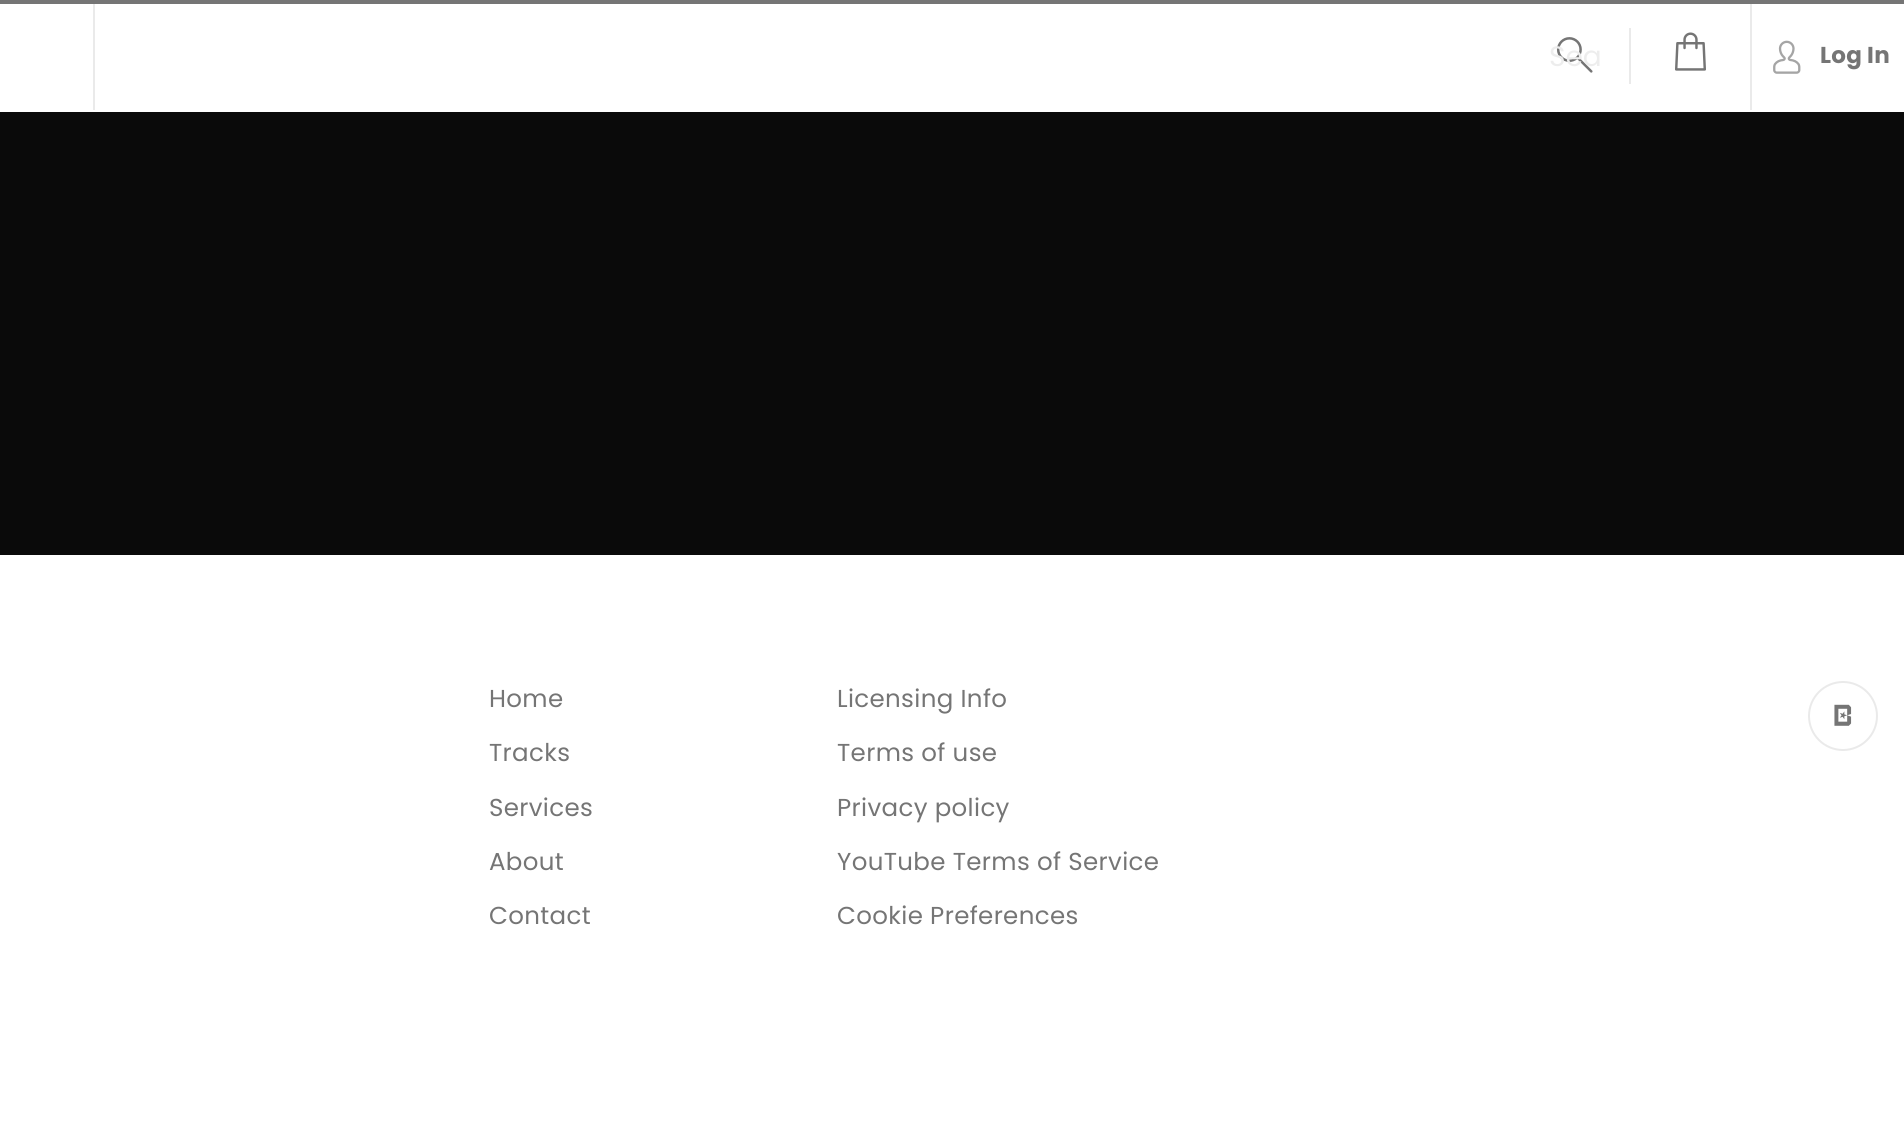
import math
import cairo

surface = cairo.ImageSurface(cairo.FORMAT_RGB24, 1904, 1123)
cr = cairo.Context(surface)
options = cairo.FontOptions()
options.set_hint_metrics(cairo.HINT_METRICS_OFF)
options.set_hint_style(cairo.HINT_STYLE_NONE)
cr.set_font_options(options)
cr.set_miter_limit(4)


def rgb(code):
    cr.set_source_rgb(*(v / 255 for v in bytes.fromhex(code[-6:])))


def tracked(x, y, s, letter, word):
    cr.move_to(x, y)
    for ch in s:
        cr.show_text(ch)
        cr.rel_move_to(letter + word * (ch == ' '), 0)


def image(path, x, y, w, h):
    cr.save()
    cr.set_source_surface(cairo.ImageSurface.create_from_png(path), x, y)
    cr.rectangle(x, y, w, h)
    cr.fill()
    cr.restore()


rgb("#ffffff")
cr.paint()
for x, y, w, h, color in [
    (0, 112, 1904, 443, "#0a0a0a"),
    (93, 2, 2, 108, "#eaeaea"),
    (1750, 2, 2, 108, "#eaeaea"),
    (0, 0, 1904, 4, "#757575"),
]:
    rgb(color)
    cr.rectangle(x, y, w, h)
    cr.fill()
image("img/1.png", 1556, 37, 37, 36)
rgb("#eaeaea")
cr.rectangle(1629, 28, 2, 56)
cr.fill()
image("img/2.png", 1675, 32, 31, 39)
image("img/3.png", 1773, 40, 28, 34)
cr.arc(1843, 716, 34, 0, 2 * math.pi)
cr.stroke()
image("img/4.png", 1834, 704, 18, 22)
cr.select_font_face("Poppins")
cr.set_font_size(28)
rgb("#ededed")
cr.move_to(1549, 66)
cr.show_text("Sea")
cr.select_font_face("Poppins", cairo.FONT_SLANT_NORMAL, cairo.FONT_WEIGHT_BOLD)
cr.set_font_size(23)
rgb("#757575")
tracked(1820, 63, "Log In", 0.25, 0)
cr.select_font_face("Poppins")
cr.set_font_size(24.5)
for x, y, s in [
    (489, 707, "Home"),
    (489, 761, "Tracks"),
    (489, 816, "Services"),
    (489, 870, "About"),
    (489, 924, "Contact"),
    (837, 707, "Licensing Info"),
    (837, 761, "Terms of use"),
    (837, 816, "Privacy policy"),
    (837, 870, "YouTube Terms of Service"),
    (837, 924, "Cookie Preferences"),
]:
    tracked(x, y, s, 0.35, 0)
surface.write_to_png("page.png")
